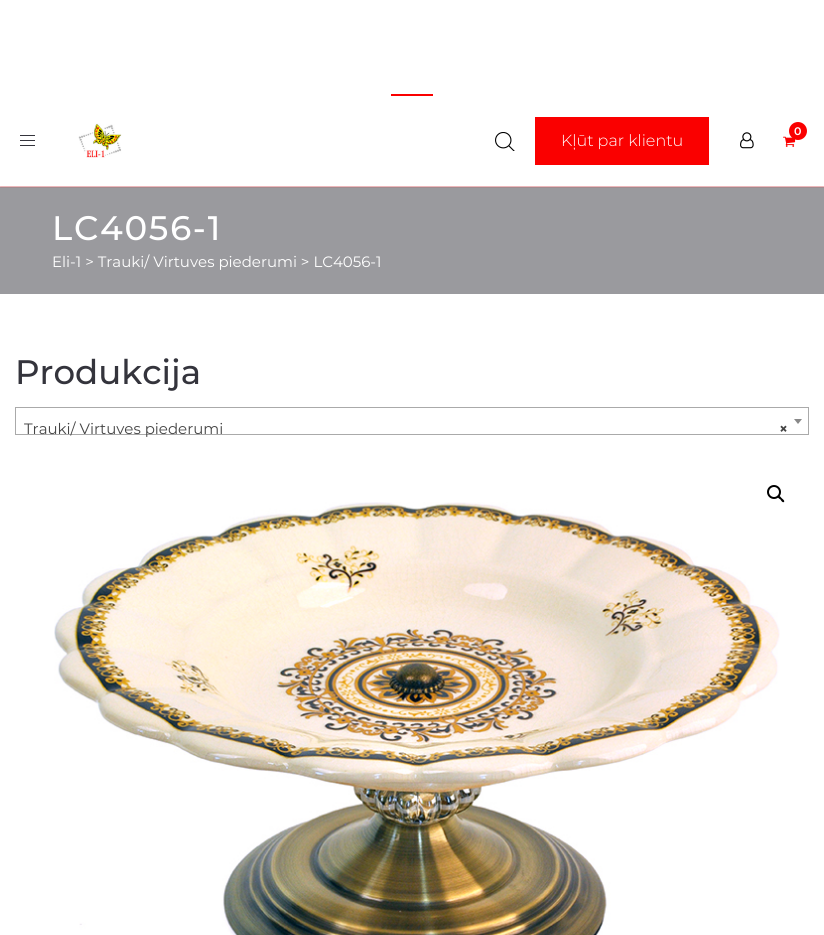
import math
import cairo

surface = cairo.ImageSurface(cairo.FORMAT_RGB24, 824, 935)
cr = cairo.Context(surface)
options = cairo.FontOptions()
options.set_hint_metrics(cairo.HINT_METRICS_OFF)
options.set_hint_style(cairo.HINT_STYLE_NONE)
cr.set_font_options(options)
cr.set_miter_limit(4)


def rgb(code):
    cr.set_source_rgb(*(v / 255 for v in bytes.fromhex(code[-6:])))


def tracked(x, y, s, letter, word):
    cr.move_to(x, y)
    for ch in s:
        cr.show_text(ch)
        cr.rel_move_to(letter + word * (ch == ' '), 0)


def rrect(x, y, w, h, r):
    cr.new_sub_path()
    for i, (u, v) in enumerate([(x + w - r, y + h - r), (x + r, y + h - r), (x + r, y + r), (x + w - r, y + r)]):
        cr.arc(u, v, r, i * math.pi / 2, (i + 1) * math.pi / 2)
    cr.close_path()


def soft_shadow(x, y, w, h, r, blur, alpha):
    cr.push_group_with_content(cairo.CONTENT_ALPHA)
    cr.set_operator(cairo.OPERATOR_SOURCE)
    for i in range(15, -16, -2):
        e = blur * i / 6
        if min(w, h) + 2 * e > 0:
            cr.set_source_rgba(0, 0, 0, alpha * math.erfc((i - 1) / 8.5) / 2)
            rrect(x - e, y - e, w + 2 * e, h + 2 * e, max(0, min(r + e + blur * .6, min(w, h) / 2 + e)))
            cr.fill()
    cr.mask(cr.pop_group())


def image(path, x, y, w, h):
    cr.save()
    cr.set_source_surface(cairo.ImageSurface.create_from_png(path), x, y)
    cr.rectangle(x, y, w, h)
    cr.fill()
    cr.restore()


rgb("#ffffff")
cr.paint()
rgb("#e8e8ec")
cr.rectangle(0, 186, 824, 1)
cr.fill()
rgb("#9a9a9e")
cr.rectangle(0, 187, 824, 107)
cr.fill()
cr.save()
cr.rectangle(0, 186, 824, 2)
cr.clip()
rgb("#fa0000")
soft_shadow(0, 97, 824, 90, 0, 1, 0.3)
cr.restore()
for x, y, w, h, color in [
    (391, 94, 42, 2, "#fa0000"),
    (20, 145, 15, 1, "#34343c"),
    (20, 135, 15, 1, "#34343c"),
    (20, 140, 15, 1, "#34343c"),
]:
    rgb(color)
    cr.rectangle(x, y, w, h)
    cr.fill()
image("img/1.png", 78, 123, 44, 35)
image("img/2.png", 783, 136, 13, 11)
rgb("#fa0000")
cr.arc(798, 131, 9, 0, 2 * math.pi)
cr.fill()
image("img/3.png", 495, 132, 20, 19)
cr.rectangle(535, 117, 174, 48)
cr.fill()
image("img/4.png", 740, 132, 14, 17)
cr.rectangle(15.5, 407.5, 793, 27)
rgb("#aaaaaa")
cr.set_line_width(1)
cr.stroke()
rgb("#888888")
cr.new_path()
cr.move_to(794, 419)
cr.line_to(802, 419)
cr.line_to(798, 424)
cr.close_path()
cr.fill()
cr.arc(774, 492, 6, 0, 2 * math.pi)
rgb("#000000")
cr.set_line_width(2)
cr.stroke()
image("img/5.png", 54, 502, 726, 433)
cr.new_path()
cr.move_to(778, 496)
cr.curve_to(779.5, 495, 781, 497.5, 781.5, 498)
cr.curve_to(782.5, 499, 785, 500.5, 784, 502)
cr.curve_to(782.5, 503, 781, 500.5, 780.5, 499.5)
cr.curve_to(779.5, 499, 777, 497.5, 778, 496)
cr.close_path()
cr.fill()
cr.select_font_face("Montserrat SemiBold")
cr.set_font_size(11)
rgb("#ffffff")
cr.move_to(794, 135)
cr.show_text("0")
cr.select_font_face("Montserrat Light")
cr.set_font_size(16)
cr.move_to(561, 146)
cr.show_text("Kļūt par klientu")
cr.select_font_face("Montserrat Medium")
cr.set_font_size(34)
tracked(52, 240, "LC4056-1", 1.75, 0)
cr.select_font_face("Montserrat")
cr.set_font_size(15)
cr.move_to(52, 267)
cr.show_text("Eli-1 > Trauki/ Virtuves piederumi > LC4056-1")
cr.select_font_face("Montserrat Medium")
cr.set_font_size(34)
rgb("#34343c")
cr.move_to(15, 384)
cr.show_text("Produkcija")
cr.select_font_face("Montserrat")
cr.set_font_size(15)
rgb("#444444")
cr.move_to(24, 434)
cr.show_text("Trauki/ Virtuves piederumi")
cr.select_font_face("Montserrat", cairo.FONT_SLANT_NORMAL, cairo.FONT_WEIGHT_BOLD)
cr.move_to(779, 434)
cr.show_text("×")
surface.write_to_png("page.png")
